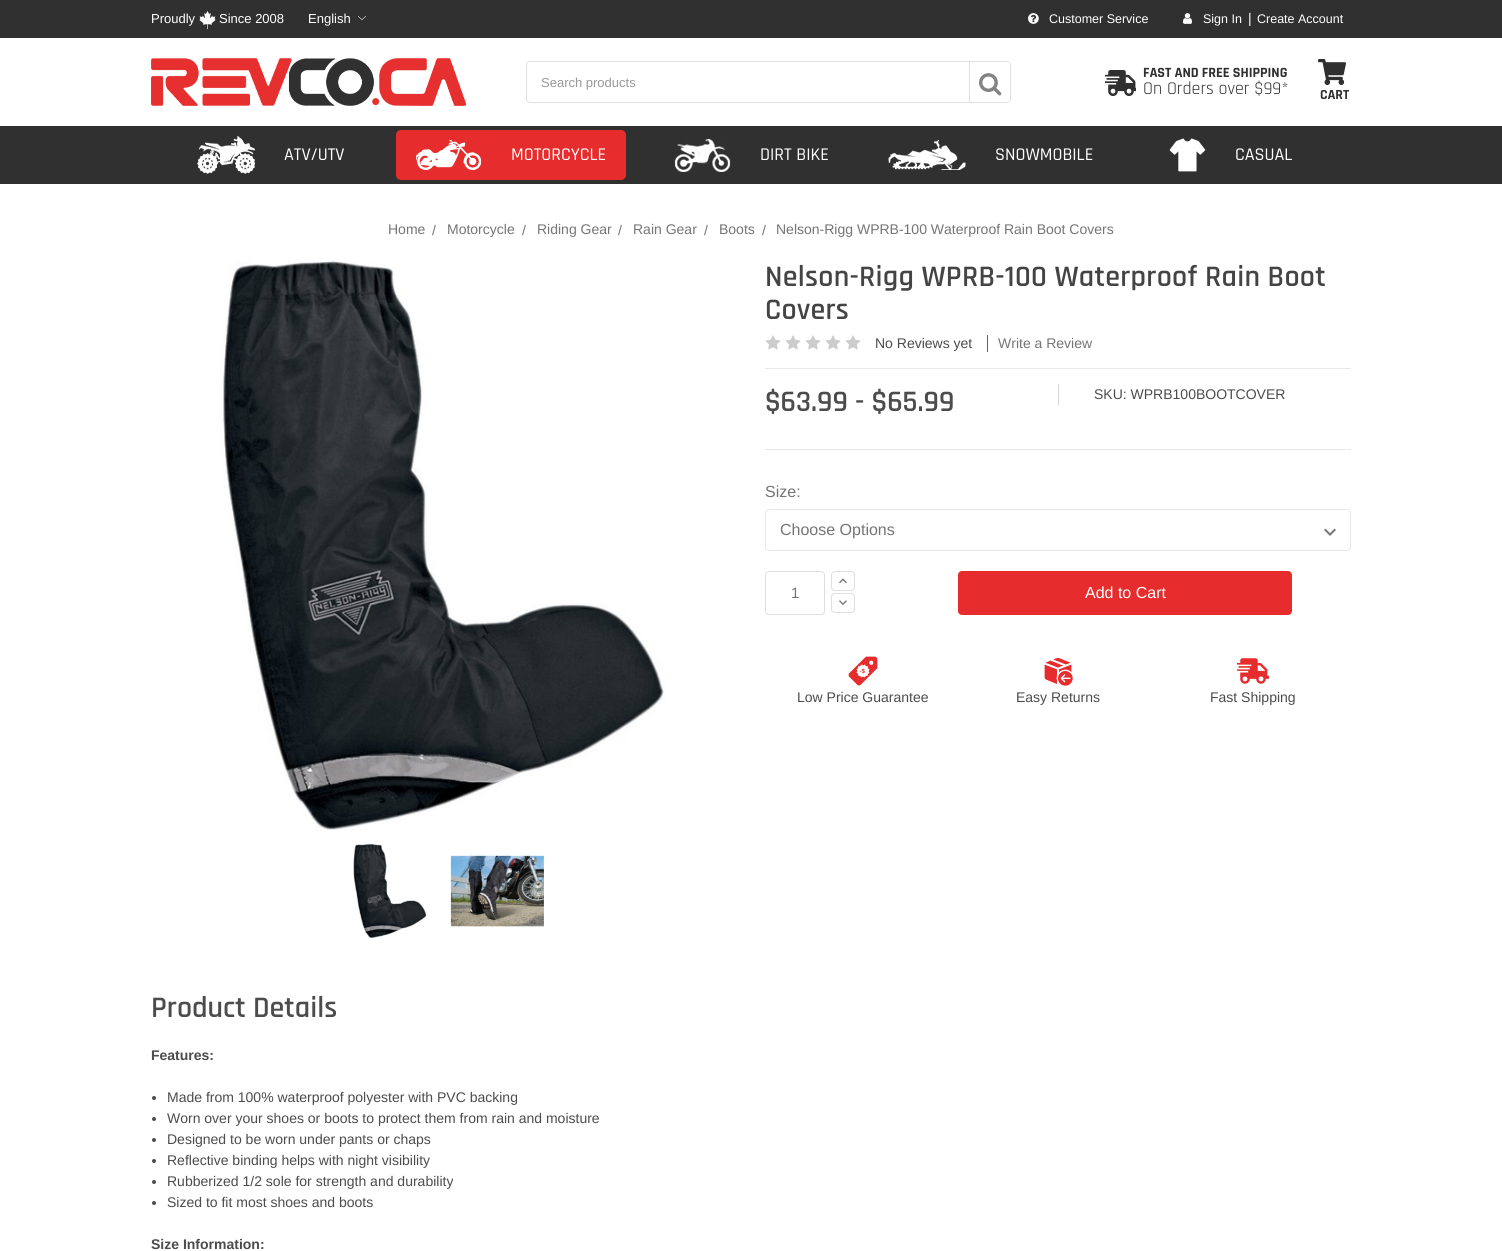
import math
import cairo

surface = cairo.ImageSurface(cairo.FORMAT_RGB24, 1502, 1251)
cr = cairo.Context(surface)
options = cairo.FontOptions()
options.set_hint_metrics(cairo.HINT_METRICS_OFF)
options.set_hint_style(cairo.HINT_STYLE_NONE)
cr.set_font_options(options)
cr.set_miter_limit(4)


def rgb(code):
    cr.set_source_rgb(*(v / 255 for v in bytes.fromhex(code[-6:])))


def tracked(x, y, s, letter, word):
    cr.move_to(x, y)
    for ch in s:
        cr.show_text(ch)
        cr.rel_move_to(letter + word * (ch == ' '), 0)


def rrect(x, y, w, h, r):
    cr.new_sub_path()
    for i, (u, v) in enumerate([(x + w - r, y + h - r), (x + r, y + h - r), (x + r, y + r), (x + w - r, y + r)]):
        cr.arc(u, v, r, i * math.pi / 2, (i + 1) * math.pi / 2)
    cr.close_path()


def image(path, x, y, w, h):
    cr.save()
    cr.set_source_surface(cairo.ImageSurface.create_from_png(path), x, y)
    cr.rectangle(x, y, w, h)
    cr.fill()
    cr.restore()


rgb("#ffffff")
cr.paint()
rgb("#303030")
cr.rectangle(0, 0, 1502, 38)
cr.fill()
image("img/1.png", 199, 11, 17, 18)
image("img/2.png", 358, 16, 8, 4)
image("img/3.png", 1028, 13, 11, 11)
image("img/4.png", 1183, 13, 9, 11)
image("img/5.png", 151, 58, 315, 48)
cr.new_path()
cr.move_to(530, 61.5)
cr.line_to(969.5, 61.5)
cr.line_to(969.5, 102.5)
cr.line_to(530, 102.5)
cr.curve_to(528, 102.5, 526.5, 101, 526.5, 99)
cr.line_to(526.5, 65)
cr.curve_to(526.5, 63, 528, 61.5, 530, 61.5)
cr.close_path()
rgb("#e0e0e0")
cr.set_line_width(1)
cr.stroke()
cr.set_fill_rule(cairo.FILL_RULE_EVEN_ODD)
cr.new_path()
cr.move_to(970, 61)
cr.line_to(1007, 61)
cr.curve_to(1009, 61, 1011, 63, 1011, 65)
cr.line_to(1011, 99)
cr.curve_to(1011, 101, 1009, 103, 1007, 103)
cr.line_to(970, 103)
cr.close_path()
cr.move_to(970, 62)
cr.line_to(1007, 62)
cr.curve_to(1009, 62, 1010, 63, 1010, 65)
cr.line_to(1010, 99)
cr.curve_to(1010, 101, 1009, 102, 1007, 102)
cr.line_to(970, 102)
cr.close_path()
cr.fill()
image("img/6.png", 979, 73, 23, 23)
image("img/7.png", 1105, 70, 31, 26)
image("img/8.png", 1318, 59, 28, 26)
rgb("#303030")
cr.rectangle(0, 126, 1502, 58)
cr.fill()
image("img/9.png", 197, 136, 58, 38)
rgb("#e62c2d")
rrect(396, 130, 230, 50, 5)
cr.fill()
image("img/10.png", 416, 140, 66, 30)
image("img/11.png", 674, 139, 57, 33)
image("img/12.png", 888, 140, 78, 30)
image("img/13.png", 1169, 138, 37, 34)
image("img/14.png", 219, 261, 446, 570)
image("img/15.png", 353, 843, 74, 95)
image("img/16.png", 450, 854, 94, 74)
rgb("#e8e8e8")
cr.rectangle(765, 368, 586, 1)
cr.fill()
image("img/17.png", 765, 335, 16, 15)
image("img/17.png", 785, 335, 16, 15)
image("img/17.png", 805, 335, 16, 15)
image("img/17.png", 825, 335, 16, 15)
image("img/17.png", 845, 335, 16, 15)
for x, y, w, h, color in [
    (987, 335, 1, 17, "#666666"),
    (1058, 384, 1, 21, "#d7d7d7"),
    (765, 449, 586, 1, "#e8e8e8"),
]:
    rgb(color)
    cr.rectangle(x, y, w, h)
    cr.fill()
image("img/18.png", 1324, 528, 12, 8)
rrect(765.5, 509.5, 585, 41, 3.5)
cr.stroke()
rrect(765.5, 571.5, 59, 43, 3.5)
rgb("#dfdfdf")
cr.stroke()
rrect(831.5, 571.5, 23, 19, 3.5)
cr.stroke()
image("img/19.png", 839, 578, 8, 6)
rrect(831.5, 593.5, 23, 19, 3.5)
cr.stroke()
image("img/20.png", 839, 600, 8, 5)
rgb("#e62c2d")
rrect(958.5, 571.5, 333, 43, 3.5)
cr.fill_preserve()
cr.stroke()
image("img/21.png", 848, 656, 30, 30)
image("img/22.png", 1044, 658, 29, 28)
image("img/23.png", 1237, 658, 32, 26)
rgb("#4c4c4c")
cr.arc(154, 1098, 2, 0, 2 * math.pi)
cr.fill()
cr.arc(154, 1119, 2, 0, 2 * math.pi)
cr.fill()
cr.arc(154, 1140, 2, 0, 2 * math.pi)
cr.fill()
cr.arc(154, 1161, 2, 0, 2 * math.pi)
cr.fill()
cr.arc(154, 1182, 2, 0, 2 * math.pi)
cr.fill()
cr.arc(154, 1203, 2, 0, 2 * math.pi)
cr.fill()
cr.select_font_face("Arimo")
cr.set_font_size(13)
rgb("#ffffff")
for x, y, s in [
    (151, 23, "Proudly"),
    (219, 23, "Since 2008"),
    (308, 23, "English"),
]:
    cr.move_to(x, y)
    cr.show_text(s)
cr.set_font_size(12.5)
cr.move_to(1049, 23)
cr.show_text("Customer Service")
cr.move_to(1203, 23)
cr.show_text("Sign In")
cr.set_font_size(14)
cr.move_to(1248, 23)
cr.show_text("|")
cr.set_font_size(12.5)
cr.move_to(1257, 23)
cr.show_text("Create Account")
cr.set_font_size(13)
rgb("#999999")
cr.move_to(541, 87)
cr.show_text("Search products")
cr.select_font_face("Rajdhani", cairo.FONT_SLANT_NORMAL, cairo.FONT_WEIGHT_BOLD)
cr.set_font_size(14.25)
rgb("#303030")
cr.move_to(1143, 77)
cr.show_text("FAST AND FREE SHIPPING")
cr.select_font_face("Rajdhani")
cr.set_font_size(18)
cr.move_to(1143, 94)
cr.show_text("On Orders over $99*")
cr.select_font_face("Rajdhani", cairo.FONT_SLANT_NORMAL, cairo.FONT_WEIGHT_BOLD)
cr.set_font_size(14)
cr.move_to(1320, 99)
cr.show_text("CART")
cr.select_font_face("Rajdhani Medium")
cr.set_font_size(18)
rgb("#ffffff")
for x, y, s in [
    (284, 160, "ATV/UTV"),
    (511, 160, "MOTORCYCLE"),
    (760, 160, "DIRT BIKE"),
    (995, 160, "SNOWMOBILE"),
    (1235, 160, "CASUAL"),
]:
    cr.move_to(x, y)
    cr.show_text(s)
cr.select_font_face("Arimo")
cr.set_font_size(14)
rgb("#757575")
for x, y, s in [
    (388, 234, "Home"),
    (432, 235, "/"),
    (447, 234, "Motorcycle"),
    (522, 235, "/"),
    (537, 234, "Riding Gear"),
    (618, 235, "/"),
    (633, 234, "Rain Gear"),
    (704, 235, "/"),
    (719, 234, "Boots"),
    (762, 235, "/"),
    (776, 234, "Nelson-Rigg WPRB-100 Waterproof Rain Boot Covers"),
]:
    cr.move_to(x, y)
    cr.show_text(s)
cr.select_font_face("Rajdhani SemiBold")
cr.set_font_size(30)
rgb("#444444")
tracked(765, 286, "Nelson-Rigg WPRB-100 Waterproof Rain Boot", 0.25, 0)
tracked(765, 319, "Covers", 0.25, 0)
cr.select_font_face("Arimo")
cr.set_font_size(14)
rgb("#4c4c4c")
cr.move_to(875, 348)
cr.show_text("No Reviews yet")
rgb("#757575")
cr.move_to(998, 348)
cr.show_text("Write a Review")
cr.select_font_face("Rajdhani SemiBold")
cr.set_font_size(30)
rgb("#4c4c4c")
cr.move_to(765, 411)
cr.show_text("$63.99 - $65.99")
cr.select_font_face("Arimo")
cr.set_font_size(14)
cr.move_to(1094, 399)
cr.show_text("SKU: WPRB100BOOTCOVER")
cr.set_font_size(16)
rgb("#757575")
cr.move_to(765, 497)
cr.show_text("Size:")
cr.move_to(780, 535)
cr.show_text("Choose Options")
cr.set_font_size(15)
cr.move_to(791, 598)
cr.show_text("1")
cr.set_font_size(16)
rgb("#ffffff")
cr.move_to(1085, 598)
cr.show_text("Add to Cart")
cr.set_font_size(14)
rgb("#4c4c4c")
for x, y, s in [
    (797, 702, "Low Price Guarantee"),
    (1016, 702, "Easy Returns"),
    (1210, 702, "Fast Shipping"),
]:
    cr.move_to(x, y)
    cr.show_text(s)
cr.select_font_face("Rajdhani SemiBold")
cr.set_font_size(30)
cr.move_to(151, 1017)
cr.show_text("Product Details")
cr.select_font_face("Arimo", cairo.FONT_SLANT_NORMAL, cairo.FONT_WEIGHT_BOLD)
cr.set_font_size(14)
cr.move_to(151, 1060)
cr.show_text("Features:")
cr.select_font_face("Arimo")
for x, y, s in [
    (167, 1102, "Made from 100% waterproof polyester with PVC backing"),
    (167, 1123, "Worn over your shoes or boots to protect them from rain and moisture"),
    (167, 1144, "Designed to be worn under pants or chaps"),
    (167, 1165, "Reflective binding helps with night visibility"),
    (167, 1186, "Rubberized 1/2 sole for strength and durability"),
    (167, 1207, "Sized to fit most shoes and boots"),
]:
    cr.move_to(x, y)
    cr.show_text(s)
cr.select_font_face("Arimo", cairo.FONT_SLANT_NORMAL, cairo.FONT_WEIGHT_BOLD)
cr.move_to(151, 1249)
cr.show_text("Size Information:")
surface.write_to_png("page.png")
